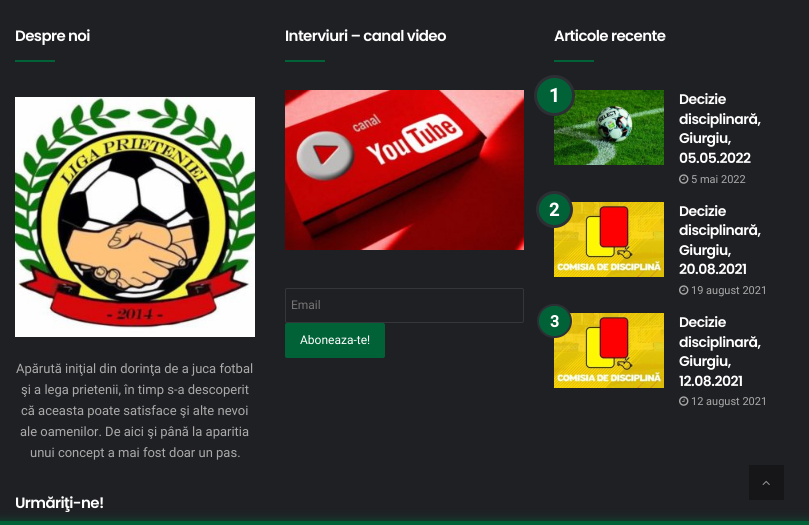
import math
import cairo

surface = cairo.ImageSurface(cairo.FORMAT_RGB24, 809, 525)
cr = cairo.Context(surface)
options = cairo.FontOptions()
options.set_hint_metrics(cairo.HINT_METRICS_OFF)
options.set_hint_style(cairo.HINT_STYLE_NONE)
cr.set_font_options(options)
cr.set_miter_limit(4)


def rgb(code):
    cr.set_source_rgb(*(v / 255 for v in bytes.fromhex(code[-6:])))


def tracked(x, y, s, letter, word):
    cr.move_to(x, y)
    for ch in s:
        cr.show_text(ch)
        cr.rel_move_to(letter + word * (ch == ' '), 0)


def rrect(x, y, w, h, r):
    cr.new_sub_path()
    for i, (u, v) in enumerate([(x + w - r, y + h - r), (x + r, y + h - r), (x + r, y + r), (x + w - r, y + r)]):
        cr.arc(u, v, r, i * math.pi / 2, (i + 1) * math.pi / 2)
    cr.close_path()


def soft_shadow(x, y, w, h, r, blur, alpha):
    cr.push_group_with_content(cairo.CONTENT_ALPHA)
    cr.set_operator(cairo.OPERATOR_SOURCE)
    for i in range(15, -16, -2):
        e = blur * i / 6
        if min(w, h) + 2 * e > 0:
            cr.set_source_rgba(0, 0, 0, alpha * math.erfc((i - 1) / 8.5) / 2)
            rrect(x - e, y - e, w + 2 * e, h + 2 * e, max(0, min(r + e + blur * .6, min(w, h) / 2 + e)))
            cr.fill()
    cr.mask(cr.pop_group())


def image(path, x, y, w, h):
    cr.save()
    cr.set_source_surface(cairo.ImageSurface.create_from_png(path), x, y)
    cr.rectangle(x, y, w, h)
    cr.fill()
    cr.restore()


rgb("#1f2024")
cr.paint()
rgb("#016237")
cr.rectangle(15, 60, 40, 2)
cr.fill()
image("img/1.png", 15, 97, 240, 240)
cr.rectangle(285, 60, 40, 2)
cr.fill()
image("img/2.png", 285, 90, 239, 160)
rrect(285.5, 288.5, 238, 34, 1.5)
rgb("#35363a")
cr.set_line_width(1)
cr.stroke()
rgb("#016237")
rrect(285, 323, 100, 35, 2)
cr.fill()
cr.rectangle(554, 60, 40, 2)
cr.fill()
image("img/3.png", 554, 90, 110, 75)
cr.arc(554.5, 95.5, 19, 0, 2 * math.pi)
cr.fill_preserve()
rgb("#2c2f34")
cr.set_line_width(3)
cr.stroke()
image("img/4.png", 679, 174, 10, 10)
image("img/5.png", 554, 202, 110, 75)
rgb("#016237")
cr.arc(554.5, 209.5, 17, 0, 2 * math.pi)
cr.fill_preserve()
rgb("#2c2f34")
cr.stroke()
image("img/4.png", 679, 285, 10, 10)
image("img/5.png", 554, 313, 110, 75)
rgb("#016237")
rrect(538, 305, 33, 32, 16)
cr.fill_preserve()
rgb("#2c2f34")
cr.set_line_width(2)
cr.stroke()
image("img/4.png", 679, 396, 10, 10)
rgb("#161619")
cr.rectangle(749, 465, 35, 35)
cr.fill()
image("img/6.png", 762, 480, 8, 5)
rgb("#016237")
soft_shadow(0, 521, 809, 4, 0, 5, 0.7)
rgb("#016237")
cr.rectangle(0, 521, 809, 4)
cr.fill()
cr.select_font_face("Poppins SemiBold")
cr.set_font_size(15)
rgb("#ffffff")
tracked(15, 41, "Despre noi", -0.6, 0)
cr.select_font_face("Roboto")
cr.set_font_size(13)
rgb("#aaaaaa")
for x, y, s in [
    (16, 373, "Apărută iniţial din dorinţa de a juca fotbal"),
    (21, 394, "şi a lega prietenii, în timp s-a descoperit"),
    (21, 415, "că aceasta poate satisface şi alte nevoi"),
    (20, 436, "ale oamenilor. De aici şi până la aparitia"),
    (30, 457, "unui concept a mai fost doar un pas."),
]:
    cr.move_to(x, y)
    cr.show_text(s)
cr.select_font_face("Poppins SemiBold")
cr.set_font_size(15)
rgb("#ffffff")
tracked(15, 508, "Urmăriţi-ne!", -0.6, 0)
tracked(285, 41, "Interviuri – canal video", -0.6, 0)
cr.select_font_face("Roboto")
cr.set_font_size(12)
rgb("#757575")
cr.move_to(291, 309)
cr.show_text("Email")
rgb("#ffffff")
cr.move_to(300, 344)
cr.show_text("Aboneaza-te!")
cr.select_font_face("Poppins SemiBold")
cr.set_font_size(15)
tracked(554, 41, "Articole recente", -0.6, 0)
cr.select_font_face("Roboto", cairo.FONT_SLANT_NORMAL, cairo.FONT_WEIGHT_BOLD)
cr.set_font_size(19)
cr.move_to(549, 102)
cr.show_text("1")
cr.select_font_face("Poppins SemiBold")
cr.set_font_size(14)
for x, y, s in [
    (679, 104, "Decizie"),
    (679, 124, "disciplinară,"),
    (679, 143, "Giurgiu,"),
    (679, 163, "05.05.2022"),
]:
    tracked(x, y, s, -0.5, 0)
cr.select_font_face("Roboto")
cr.set_font_size(11)
rgb("#aaaaaa")
cr.move_to(691, 183)
cr.show_text("5 mai 2022")
cr.select_font_face("Roboto", cairo.FONT_SLANT_NORMAL, cairo.FONT_WEIGHT_BOLD)
cr.set_font_size(18)
rgb("#ffffff")
cr.move_to(549, 216)
cr.show_text("2")
cr.select_font_face("Poppins SemiBold")
cr.set_font_size(14)
for x, y, s in [
    (679, 216, "Decizie"),
    (679, 235, "disciplinară,"),
    (679, 255, "Giurgiu,"),
    (679, 274, "20.08.2021"),
]:
    tracked(x, y, s, -0.5, 0)
cr.select_font_face("Roboto")
cr.set_font_size(11)
rgb("#aaaaaa")
cr.move_to(691, 294)
cr.show_text("19 august 2021")
cr.select_font_face("Roboto", cairo.FONT_SLANT_NORMAL, cairo.FONT_WEIGHT_BOLD)
cr.set_font_size(16)
rgb("#ffffff")
cr.move_to(550, 327)
cr.show_text("3")
cr.select_font_face("Poppins SemiBold")
cr.set_font_size(14)
for x, y, s in [
    (679, 327, "Decizie"),
    (679, 347, "disciplinară,"),
    (679, 366, "Giurgiu,"),
    (679, 386, "12.08.2021"),
]:
    tracked(x, y, s, -0.5, 0)
cr.select_font_face("Roboto")
cr.set_font_size(11)
rgb("#aaaaaa")
cr.move_to(691, 405)
cr.show_text("12 august 2021")
surface.write_to_png("page.png")
